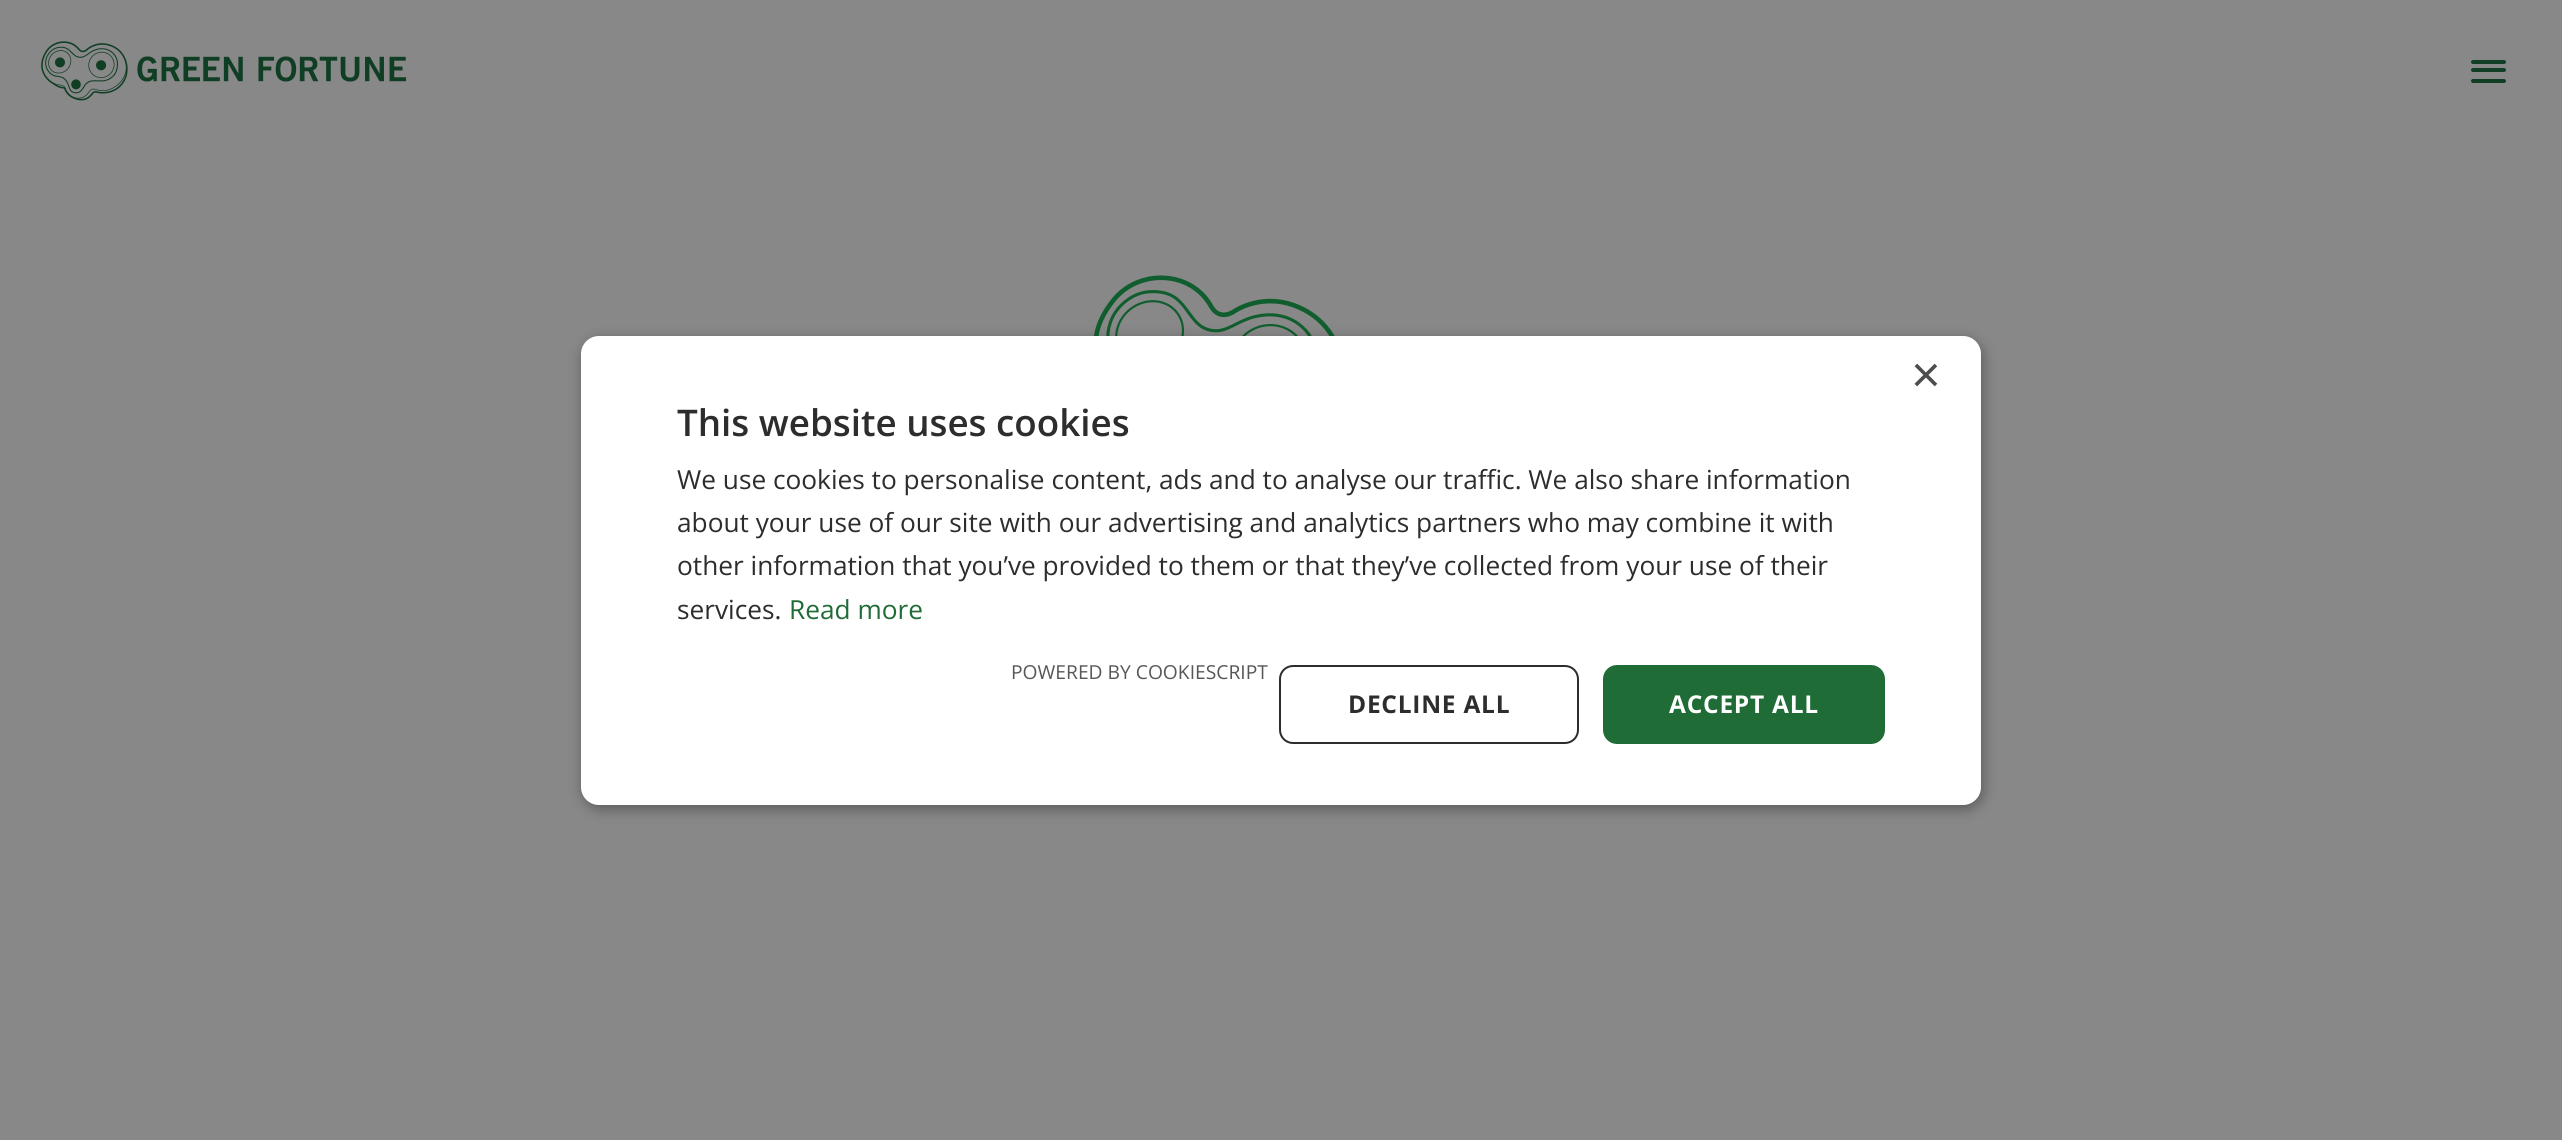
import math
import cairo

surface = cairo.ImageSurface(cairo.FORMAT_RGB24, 2562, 1140)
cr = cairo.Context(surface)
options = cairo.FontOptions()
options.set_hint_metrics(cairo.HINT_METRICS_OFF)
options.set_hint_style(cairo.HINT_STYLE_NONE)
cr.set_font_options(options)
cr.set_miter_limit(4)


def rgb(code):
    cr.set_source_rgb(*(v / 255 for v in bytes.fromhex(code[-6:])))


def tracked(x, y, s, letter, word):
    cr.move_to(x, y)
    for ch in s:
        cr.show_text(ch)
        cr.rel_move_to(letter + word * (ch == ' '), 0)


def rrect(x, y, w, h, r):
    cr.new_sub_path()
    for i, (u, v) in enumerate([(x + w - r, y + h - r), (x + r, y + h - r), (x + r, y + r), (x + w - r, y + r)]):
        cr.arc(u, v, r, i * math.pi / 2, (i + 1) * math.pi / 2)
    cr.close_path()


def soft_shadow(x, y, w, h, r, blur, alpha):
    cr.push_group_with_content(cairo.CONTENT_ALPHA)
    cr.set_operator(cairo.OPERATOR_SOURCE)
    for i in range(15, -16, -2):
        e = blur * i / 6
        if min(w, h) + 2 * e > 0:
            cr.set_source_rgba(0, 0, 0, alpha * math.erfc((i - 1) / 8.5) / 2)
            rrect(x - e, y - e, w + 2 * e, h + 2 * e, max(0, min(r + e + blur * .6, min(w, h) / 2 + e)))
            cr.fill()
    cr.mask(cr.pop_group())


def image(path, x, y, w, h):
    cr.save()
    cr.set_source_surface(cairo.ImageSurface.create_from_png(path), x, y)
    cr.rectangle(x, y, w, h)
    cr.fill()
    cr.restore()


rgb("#888888")
cr.paint()
image("img/1.png", 41, 41, 366, 60)
rgb("#103f25")
rrect(2471, 60, 35, 4, 2)
cr.fill()
rrect(2471, 68, 35, 4, 2)
cr.fill()
rrect(2471, 79, 35, 4, 2)
cr.fill()
image("img/2.png", 1093, 275, 242, 61)
rgb("#000000")
soft_shadow(583, 340, 1400, 469, 18, 7, 0.35)
rgb("#ffffff")
rrect(581, 336, 1400, 469, 18)
cr.fill()
rrect(1280, 666, 298, 77, 13)
rgb("#2d2d2d")
cr.stroke()
rgb("#206c37")
rrect(1603, 665, 282, 79, 14)
cr.fill()
cr.select_font_face("Liberation Sans")
cr.set_font_size(51)
rgb("#4d4d4d")
cr.move_to(1911, 392)
cr.show_text("×")
cr.select_font_face("Open Sans SemiBold")
cr.set_font_size(36.75)
rgb("#2d2d2d")
cr.move_to(677, 436)
cr.show_text("This website uses cookies")
cr.select_font_face("Open Sans")
cr.set_font_size(26.25)
for x, y, s in [
    (677, 489, "We use cookies to personalise content, ads and to analyse our traffic. We also share information"),
    (677, 532, "about your use of our site with our advertising and analytics partners who may combine it with"),
    (677, 575, "other information that you’ve provided to them or that they’ve collected from your use of their"),
    (677, 619, "services."),
]:
    cr.move_to(x, y)
    cr.show_text(s)
rgb("#206c37")
cr.move_to(789, 619)
cr.show_text("Read more")
cr.set_font_size(19.25)
rgb("#575757")
cr.move_to(1011, 679)
cr.show_text("POWERED BY COOKIESCRIPT")
cr.select_font_face("Open Sans", cairo.FONT_SLANT_NORMAL, cairo.FONT_WEIGHT_BOLD)
cr.set_font_size(24.5)
rgb("#2d2d2d")
tracked(1348, 713, "DECLINE ALL", 0.75, 0)
rgb("#ffffff")
tracked(1669, 713, "ACCEPT ALL", 0.75, 0)
surface.write_to_png("page.png")
